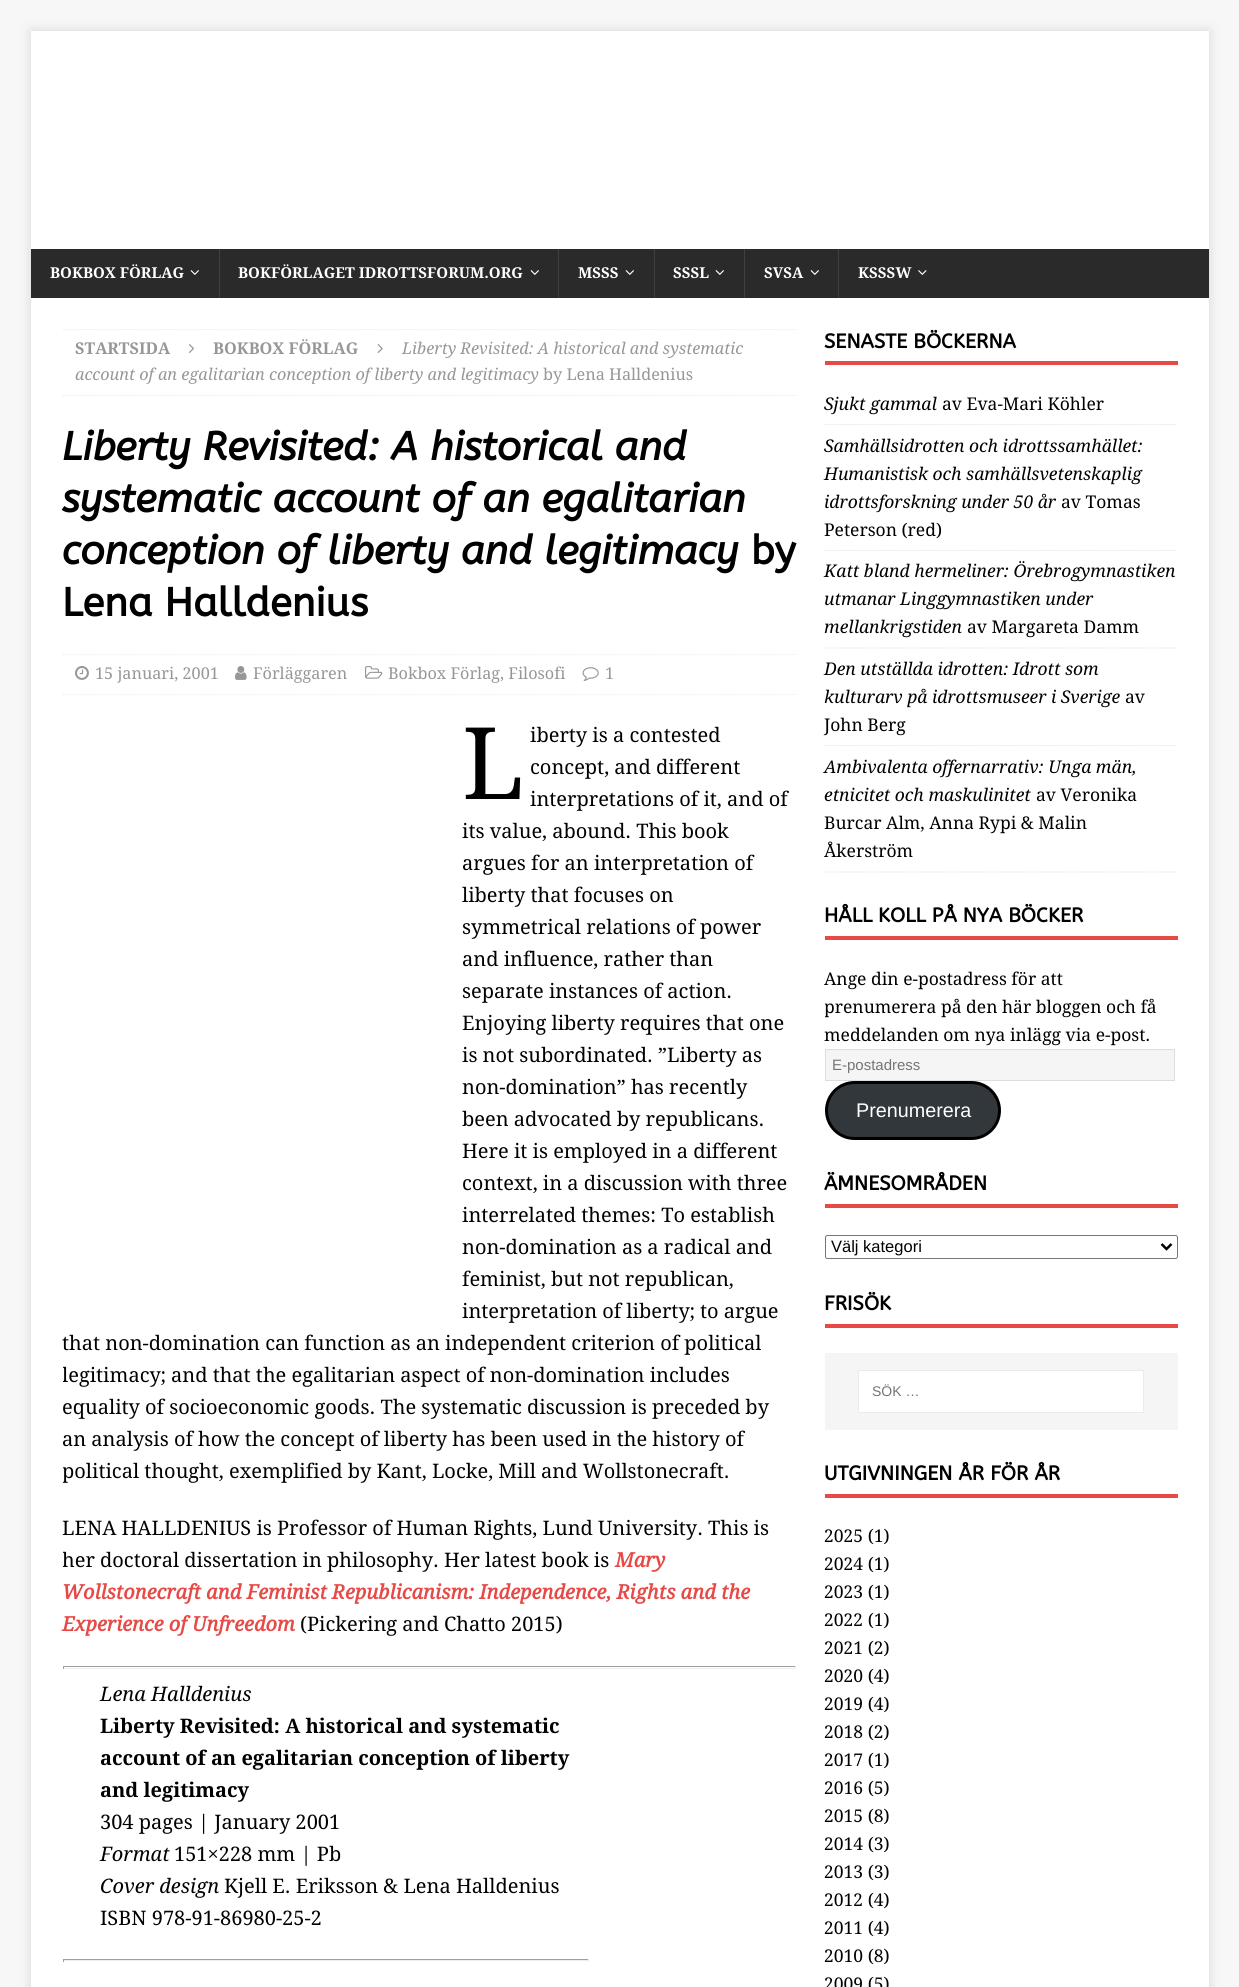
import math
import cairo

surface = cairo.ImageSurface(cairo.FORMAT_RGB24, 1239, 1987)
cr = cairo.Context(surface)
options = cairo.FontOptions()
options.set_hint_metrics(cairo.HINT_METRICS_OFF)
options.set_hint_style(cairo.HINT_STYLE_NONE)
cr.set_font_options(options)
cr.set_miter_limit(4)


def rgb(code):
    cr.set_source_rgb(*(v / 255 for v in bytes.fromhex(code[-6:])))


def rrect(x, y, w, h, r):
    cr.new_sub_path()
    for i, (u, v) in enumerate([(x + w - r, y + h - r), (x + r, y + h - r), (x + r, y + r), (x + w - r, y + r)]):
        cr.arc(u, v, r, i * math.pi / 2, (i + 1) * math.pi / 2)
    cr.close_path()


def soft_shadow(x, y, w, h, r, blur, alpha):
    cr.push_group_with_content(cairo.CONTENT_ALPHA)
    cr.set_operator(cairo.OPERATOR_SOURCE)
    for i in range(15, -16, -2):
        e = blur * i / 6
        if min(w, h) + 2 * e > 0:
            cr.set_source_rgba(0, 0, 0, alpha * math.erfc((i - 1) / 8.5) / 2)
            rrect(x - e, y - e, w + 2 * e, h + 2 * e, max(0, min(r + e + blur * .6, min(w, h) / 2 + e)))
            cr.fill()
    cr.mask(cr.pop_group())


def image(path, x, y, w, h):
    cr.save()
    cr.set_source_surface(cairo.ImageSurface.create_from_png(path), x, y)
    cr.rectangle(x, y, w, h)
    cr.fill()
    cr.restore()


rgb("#f7f7f7")
cr.paint()
rgb("#323232")
soft_shadow(31, 31, 1178, 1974, 0, 6, 0.17)
rgb("#ffffff")
cr.rectangle(31, 31, 1178, 218)
cr.fill()
rgb("#2a2a2a")
cr.rectangle(31, 249, 1178, 49)
cr.fill()
image("img/1.png", 190, 270, 9, 5)
rgb("#3f3f3f")
cr.rectangle(219, 249, 1, 49)
cr.fill()
image("img/1.png", 530, 270, 9, 5)
cr.rectangle(558, 249, 1, 49)
cr.fill()
image("img/1.png", 625, 270, 9, 5)
cr.rectangle(654, 249, 1, 49)
cr.fill()
image("img/1.png", 715, 270, 9, 5)
cr.rectangle(744, 249, 1, 49)
cr.fill()
image("img/1.png", 810, 270, 9, 5)
cr.rectangle(838, 249, 1, 49)
cr.fill()
image("img/2.png", 918, 270, 9, 5)
rgb("#ffffff")
cr.rectangle(31, 298, 1178, 1689)
cr.fill()
cr.save()
cr.rectangle(63, 329, 733, 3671)
cr.clip()
cr.new_path()
cr.move_to(62.5, 329.5)
cr.line_to(796, 329.5)
rgb("#ebebeb")
cr.set_line_width(1.2)
cr.set_dash([1.25, 1.25])
cr.stroke()
cr.restore()
cr.new_path()
cr.move_to(62.5, 395.5)
cr.line_to(796, 395.5)
rgb("#ebebeb")
cr.set_line_width(1.2)
cr.set_dash([1.25, 1.25])
cr.stroke()
image("img/3.png", 188, 344, 7, 9)
image("img/4.png", 377, 344, 6, 9)
cr.new_path()
cr.move_to(62.5, 654.5)
cr.line_to(796, 654.5)
cr.stroke()
cr.new_path()
cr.move_to(62.5, 694.5)
cr.line_to(796, 694.5)
cr.stroke()
image("img/5.png", 75, 666, 14, 14)
image("img/6.png", 235, 666, 12, 14)
image("img/7.png", 365, 666, 18, 13)
image("img/8.png", 582, 667, 17, 14)
for x, y, w, h, color in [
    (63, 1666, 733, 1, "#9f9f9f"),
    (795, 1666, 1, 3, "#eeeeee"),
    (63, 1668, 733, 1, "#eeeeee"),
    (63, 1666, 1, 3, "#9f9f9f"),
    (63, 1959, 526, 1, "#9f9f9f"),
    (588, 1959, 1, 3, "#eeeeee"),
    (63, 1960, 526, 1, "#eeeeee"),
    (63, 1959, 1, 3, "#9f9f9f"),
    (825, 361, 353, 4, "#e64946"),
]:
    rgb(color)
    cr.rectangle(x, y, w, h)
    cr.fill()
cr.new_path()
cr.move_to(825, 424.5)
cr.line_to(1177.5, 424.5)
rgb("#e5e5e5")
cr.stroke()
cr.new_path()
cr.move_to(825, 550.5)
cr.line_to(1177.5, 550.5)
cr.stroke()
cr.new_path()
cr.move_to(825, 648)
cr.line_to(1177.5, 648)
cr.stroke()
cr.new_path()
cr.move_to(825, 745.5)
cr.line_to(1177.5, 745.5)
cr.stroke()
cr.new_path()
cr.move_to(825, 872)
cr.line_to(1177.5, 872)
cr.stroke()
rgb("#e64946")
cr.rectangle(825, 936, 353, 4)
cr.fill()
rgb("#f5f5f5")
cr.rectangle(825.5, 1049.5, 349, 31)
cr.fill_preserve()
rgb("#dddddd")
cr.set_line_width(1)
cr.set_dash([])
cr.stroke()
rgb("#32373c")
rrect(826.5, 1082.5, 173, 56, 28)
cr.fill_preserve()
rgb("#000000")
cr.set_line_width(3)
cr.stroke()
rgb("#e64946")
cr.rectangle(825, 1204, 353, 4)
cr.fill()
rrect(825.5, 1235.5, 352, 23, 2)
rgb("#767676")
cr.set_line_width(1)
cr.stroke()
cr.new_path()
cr.move_to(1161.5, 1244)
cr.line_to(1166.5, 1249)
cr.line_to(1171.5, 1244)
rgb("#000000")
cr.set_line_width(2.5)
cr.stroke()
rgb("#e64946")
cr.rectangle(825, 1324, 353, 4)
cr.fill()
rgb("#f5f5f5")
cr.rectangle(825, 1353, 353, 77)
cr.fill()
rgb("#ffffff")
cr.rectangle(858.5, 1370.5, 285, 42)
cr.fill_preserve()
rgb("#ebebeb")
cr.set_line_width(1)
cr.stroke()
rgb("#e64946")
cr.rectangle(825, 1494, 353, 4)
cr.fill()
cr.select_font_face("Droid Serif", cairo.FONT_SLANT_NORMAL, cairo.FONT_WEIGHT_BOLD)
cr.set_font_size(15)
rgb("#ffffff")
for x, y, s in [
    (50, 278, "BOKBOX FÖRLAG"),
    (238, 278, "BOKFÖRLAGET IDROTTSFORUM.ORG"),
    (578, 278, "MSSS"),
    (673, 278, "SSSL"),
    (764, 278, "SVSA"),
    (858, 278, "KSSSW"),
]:
    cr.move_to(x, y)
    cr.show_text(s)
cr.set_font_size(16.25)
rgb("#979797")
cr.move_to(75, 354)
cr.show_text("STARTSIDA")
cr.move_to(213, 354)
cr.show_text("BOKBOX FÖRLAG")
cr.select_font_face("Droid Serif", cairo.FONT_SLANT_ITALIC)
cr.move_to(402, 354)
cr.show_text("Liberty Revisited: A historical and systematic")
cr.move_to(75, 380)
cr.show_text("account of an egalitarian conception of liberty and legitimacy")
cr.select_font_face("Droid Serif")
cr.move_to(543, 380)
cr.show_text("by Lena Halldenius")
cr.select_font_face("ABeeZee", cairo.FONT_SLANT_ITALIC, cairo.FONT_WEIGHT_BOLD)
cr.set_font_size(40)
rgb("#000000")
for x, y, s in [
    (62, 460, "Liberty Revisited: A historical and"),
    (62, 512, "systematic account of an egalitarian"),
    (62, 564, "conception of liberty and legitimacy"),
]:
    cr.move_to(x, y)
    cr.show_text(s)
cr.select_font_face("ABeeZee", cairo.FONT_SLANT_NORMAL, cairo.FONT_WEIGHT_BOLD)
cr.move_to(751, 564)
cr.show_text("by")
cr.move_to(62, 616)
cr.show_text("Lena Halldenius")
cr.select_font_face("Droid Serif")
cr.set_font_size(16.25)
rgb("#979797")
for x, y, s in [
    (95, 679, "15 januari, 2001"),
    (253, 679, "Förläggaren"),
    (388, 679, "Bokbox Förlag, Filosofi"),
    (605, 679, "1"),
]:
    cr.move_to(x, y)
    cr.show_text(s)
cr.set_font_size(100)
rgb("#000000")
cr.move_to(462, 799)
cr.show_text("L")
cr.set_font_size(20)
for x, y, s in [
    (530, 742, "iberty is a contested"),
    (530, 774, "concept, and different"),
    (530, 806, "interpretations of it, and of"),
    (462, 838, "its value, abound. This book"),
    (462, 870, "argues for an interpretation of"),
    (462, 902, "liberty that focuses on"),
    (462, 934, "symmetrical relations of power"),
    (462, 966, "and influence, rather than"),
    (462, 998, "separate instances of action."),
    (462, 1030, "Enjoying liberty requires that one"),
    (462, 1062, "is not subordinated. ”Liberty as"),
    (462, 1094, "non-domination” has recently"),
    (462, 1126, "been advocated by republicans."),
    (462, 1158, "Here it is employed in a different"),
    (462, 1190, "context, in a discussion with three"),
    (462, 1222, "interrelated themes: To establish"),
    (462, 1254, "non-domination as a radical and"),
    (462, 1286, "feminist, but not republican,"),
    (462, 1318, "interpretation of liberty; to argue"),
    (62, 1350, "that non-domination can function as an independent criterion of political"),
]:
    cr.move_to(x, y)
    cr.show_text(s)
cr.save()
cr.rectangle(63, 329, 733, 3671)
cr.clip()
cr.move_to(62, 1382)
cr.show_text("legitimacy; and that the egalitarian aspect of non-domination includes")
cr.restore()
cr.move_to(62, 1414)
cr.show_text("equality of socioeconomic goods. The systematic discussion is preceded by")
cr.move_to(62, 1446)
cr.show_text("an analysis of how the concept of liberty has been used in the history of")
cr.save()
cr.rectangle(63, 329, 733, 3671)
cr.clip()
cr.move_to(62, 1478)
cr.show_text("political thought, exemplified by Kant, Locke, Mill and Wollstonecraft.")
cr.restore()
cr.move_to(62, 1535)
cr.show_text("LENA HALLDENIUS is Professor of Human Rights, Lund University. This is")
cr.save()
cr.rectangle(63, 329, 733, 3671)
cr.clip()
cr.move_to(62, 1567)
cr.show_text("her doctoral dissertation in philosophy. Her latest book is")
cr.restore()
cr.select_font_face("Droid Serif", cairo.FONT_SLANT_ITALIC, cairo.FONT_WEIGHT_BOLD)
rgb("#e64946")
for x, y, s in [
    (615, 1567, "Mary"),
    (62, 1599, "Wollstonecraft and Feminist Republicanism: Independence, Rights and the"),
    (62, 1631, "Experience of Unfreedom"),
]:
    cr.move_to(x, y)
    cr.show_text(s)
cr.select_font_face("Droid Serif")
rgb("#000000")
cr.move_to(300, 1631)
cr.show_text("(Pickering and Chatto 2015)")
cr.select_font_face("Droid Serif", cairo.FONT_SLANT_ITALIC)
cr.move_to(100, 1701)
cr.show_text("Lena Halldenius")
cr.select_font_face("Droid Serif", cairo.FONT_SLANT_NORMAL, cairo.FONT_WEIGHT_BOLD)
for x, y, s in [
    (100, 1733, "Liberty Revisited: A historical and systematic"),
    (100, 1765, "account of an egalitarian conception of liberty"),
    (100, 1797, "and legitimacy"),
]:
    cr.move_to(x, y)
    cr.show_text(s)
cr.select_font_face("Droid Serif")
cr.move_to(100, 1829)
cr.show_text("304 pages | January 2001")
cr.select_font_face("Droid Serif", cairo.FONT_SLANT_ITALIC)
cr.move_to(100, 1861)
cr.show_text("Format")
cr.select_font_face("Droid Serif")
cr.move_to(174, 1861)
cr.show_text("151×228 mm | Pb")
cr.select_font_face("Droid Serif", cairo.FONT_SLANT_ITALIC)
cr.move_to(100, 1893)
cr.show_text("Cover design")
cr.select_font_face("Droid Serif")
cr.move_to(224, 1893)
cr.show_text("Kjell E. Eriksson & Lena Halldenius")
cr.move_to(100, 1925)
cr.show_text("ISBN 978-91-86980-25-2")
cr.select_font_face("ABeeZee", cairo.FONT_SLANT_NORMAL, cairo.FONT_WEIGHT_BOLD)
cr.move_to(824, 348)
cr.show_text("SENASTE BÖCKERNA")
cr.select_font_face("Droid Serif", cairo.FONT_SLANT_ITALIC)
cr.set_font_size(17.5)
cr.move_to(824, 410)
cr.show_text("Sjukt gammal")
cr.select_font_face("Droid Serif")
cr.move_to(942, 410)
cr.show_text("av Eva-Mari Köhler")
cr.select_font_face("Droid Serif", cairo.FONT_SLANT_ITALIC)
for x, y, s in [
    (824, 452, "Samhällsidrotten och idrottssamhället:"),
    (824, 480, "Humanistisk och samhällsvetenskaplig"),
    (824, 508, "idrottsforskning under 50 år"),
]:
    cr.move_to(x, y)
    cr.show_text(s)
cr.select_font_face("Droid Serif")
cr.move_to(1061, 508)
cr.show_text("av Tomas")
cr.move_to(824, 536)
cr.show_text("Peterson (red)")
cr.select_font_face("Droid Serif", cairo.FONT_SLANT_ITALIC)
for x, y, s in [
    (824, 577, "Katt bland hermeliner: Örebrogymnastiken"),
    (824, 605, "utmanar Linggymnastiken under"),
    (824, 633, "mellankrigstiden"),
]:
    cr.move_to(x, y)
    cr.show_text(s)
cr.select_font_face("Droid Serif")
cr.move_to(967, 633)
cr.show_text("av Margareta Damm")
cr.select_font_face("Droid Serif", cairo.FONT_SLANT_ITALIC)
cr.move_to(824, 675)
cr.show_text("Den utställda idrotten: Idrott som")
cr.move_to(824, 703)
cr.show_text("kulturarv på idrottsmuseer i Sverige")
cr.select_font_face("Droid Serif")
cr.move_to(1125, 703)
cr.show_text("av")
cr.move_to(824, 731)
cr.show_text("John Berg")
cr.select_font_face("Droid Serif", cairo.FONT_SLANT_ITALIC)
cr.move_to(824, 773)
cr.show_text("Ambivalenta offernarrativ: Unga män,")
cr.move_to(824, 801)
cr.show_text("etnicitet och maskulinitet")
cr.select_font_face("Droid Serif")
for x, y, s in [
    (1036, 801, "av Veronika"),
    (824, 829, "Burcar Alm, Anna Rypi & Malin"),
    (824, 857, "Åkerström"),
]:
    cr.move_to(x, y)
    cr.show_text(s)
cr.select_font_face("ABeeZee", cairo.FONT_SLANT_NORMAL, cairo.FONT_WEIGHT_BOLD)
cr.set_font_size(20)
cr.move_to(824, 922)
cr.show_text("HÅLL KOLL PÅ NYA BÖCKER")
cr.select_font_face("Droid Serif")
cr.set_font_size(17.5)
cr.move_to(824, 985)
cr.show_text("Ange din e-postadress för att")
cr.save()
cr.rectangle(825, 904, 353, 236)
cr.clip()
cr.move_to(824, 1013)
cr.show_text("prenumerera på den här bloggen och få")
cr.restore()
cr.move_to(824, 1041)
cr.show_text("meddelanden om nya inlägg via e-post.")
cr.select_font_face("Liberation Sans")
cr.set_font_size(15)
rgb("#757575")
cr.move_to(832, 1070)
cr.show_text("E-postadress")
cr.set_font_size(19.75)
rgb("#ffffff")
cr.move_to(856, 1117)
cr.show_text("Prenumerera")
cr.select_font_face("ABeeZee", cairo.FONT_SLANT_NORMAL, cairo.FONT_WEIGHT_BOLD)
cr.set_font_size(20)
rgb("#000000")
cr.move_to(824, 1190)
cr.show_text("ÄMNESOMRÅDEN")
cr.select_font_face("Liberation Sans")
cr.set_font_size(16.5)
cr.move_to(831, 1252)
cr.show_text("Välj kategori")
cr.select_font_face("ABeeZee", cairo.FONT_SLANT_NORMAL, cairo.FONT_WEIGHT_BOLD)
cr.set_font_size(20)
cr.move_to(824, 1310)
cr.show_text("FRISÖK")
cr.select_font_face("Liberation Sans")
cr.set_font_size(14)
rgb("#757575")
cr.move_to(872, 1396)
cr.show_text("SÖK …")
cr.select_font_face("ABeeZee", cairo.FONT_SLANT_NORMAL, cairo.FONT_WEIGHT_BOLD)
cr.set_font_size(20)
rgb("#000000")
cr.move_to(824, 1480)
cr.show_text("UTGIVNINGEN ÅR FÖR ÅR")
cr.select_font_face("Droid Serif")
cr.set_font_size(17.5)
for x, y, s in [
    (824, 1542, "2025 (1)"),
    (824, 1570, "2024 (1)"),
    (824, 1598, "2023 (1)"),
    (824, 1626, "2022 (1)"),
    (824, 1654, "2021 (2)"),
    (824, 1682, "2020 (4)"),
    (824, 1710, "2019 (4)"),
    (824, 1738, "2018 (2)"),
    (824, 1766, "2017 (1)"),
    (824, 1794, "2016 (5)"),
    (824, 1822, "2015 (8)"),
    (824, 1850, "2014 (3)"),
    (824, 1878, "2013 (3)"),
    (824, 1906, "2012 (4)"),
    (824, 1934, "2011 (4)"),
    (824, 1962, "2010 (8)"),
    (824, 1990, "2009 (5)"),
]:
    cr.move_to(x, y)
    cr.show_text(s)
surface.write_to_png("page.png")
